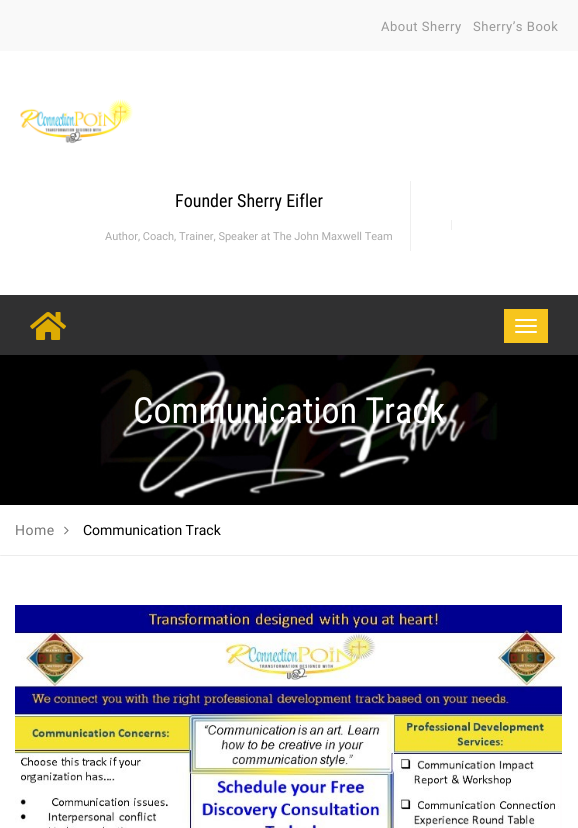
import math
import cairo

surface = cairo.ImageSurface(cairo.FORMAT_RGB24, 578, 828)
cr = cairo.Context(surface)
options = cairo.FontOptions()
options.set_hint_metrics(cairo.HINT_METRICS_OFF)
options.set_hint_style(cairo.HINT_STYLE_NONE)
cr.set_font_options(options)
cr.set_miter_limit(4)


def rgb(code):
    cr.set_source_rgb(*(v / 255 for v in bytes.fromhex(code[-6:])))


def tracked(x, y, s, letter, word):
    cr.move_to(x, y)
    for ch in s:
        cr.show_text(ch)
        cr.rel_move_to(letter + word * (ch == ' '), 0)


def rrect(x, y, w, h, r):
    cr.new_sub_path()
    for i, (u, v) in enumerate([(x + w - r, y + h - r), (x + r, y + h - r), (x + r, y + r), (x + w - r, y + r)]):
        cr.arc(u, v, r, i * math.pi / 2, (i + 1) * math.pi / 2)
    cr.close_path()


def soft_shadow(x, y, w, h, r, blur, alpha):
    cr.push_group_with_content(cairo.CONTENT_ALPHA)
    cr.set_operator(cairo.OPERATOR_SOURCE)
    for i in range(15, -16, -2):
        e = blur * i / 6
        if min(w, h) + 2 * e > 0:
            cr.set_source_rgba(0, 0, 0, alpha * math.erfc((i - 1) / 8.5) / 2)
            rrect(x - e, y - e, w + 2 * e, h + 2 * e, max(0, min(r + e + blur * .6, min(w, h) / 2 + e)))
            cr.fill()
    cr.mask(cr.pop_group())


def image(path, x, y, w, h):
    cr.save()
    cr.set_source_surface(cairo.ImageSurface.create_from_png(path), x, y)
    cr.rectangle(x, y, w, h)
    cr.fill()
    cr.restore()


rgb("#ffffff")
cr.paint()
rgb("#f9f9f9")
cr.rectangle(0, 0, 578, 51)
cr.fill()
image("img/1.png", 20, 99, 113, 45)
for x, y, w, h, color in [
    (410, 181, 1, 70, "#efefef"),
    (451, 220, 1, 10, "#efefef"),
    (0, 295, 578, 60, "#303031"),
]:
    rgb(color)
    cr.rectangle(x, y, w, h)
    cr.fill()
image("img/2.png", 30, 312, 36, 28)
rgb("#f7c51d")
cr.rectangle(504, 309, 44, 34)
cr.fill()
rgb("#ffffff")
rrect(515, 319, 22, 2, 1)
cr.fill()
rrect(515, 325, 22, 2, 1)
cr.fill()
rrect(515, 331, 22, 2, 1)
cr.fill()
cr.save()
cr.rectangle(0, 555, 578, 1)
cr.clip()
rgb("#000000")
soft_shadow(0, 506, 578, 50, 0, 0.5, 0.08)
cr.restore()
image("img/3.png", 0, 355, 578, 150)
image("img/4.png", 64, 526, 5, 9)
image("img/5.png", 15, 605, 547, 223)
cr.select_font_face("Roboto")
cr.set_font_size(13)
rgb("#999999")
tracked(381, 31, "About Sherry", 0.5, 0)
tracked(473, 31, "Sherry’s Book", 0.5, 0)
cr.select_font_face("Roboto Condensed")
cr.set_font_size(18)
rgb("#000000")
cr.move_to(175, 207)
cr.show_text("Founder Sherry Eifler")
cr.select_font_face("Roboto")
cr.set_font_size(11)
rgb("#aaaaaa")
cr.move_to(105, 240)
cr.show_text("Author, Coach, Trainer, Speaker at The John Maxwell Team")
cr.select_font_face("Roboto Condensed")
cr.set_font_size(36)
rgb("#ffffff")
cr.move_to(133, 423)
cr.show_text("Communication Track")
cr.select_font_face("Roboto")
cr.set_font_size(14)
rgb("#777777")
tracked(15, 535, "Home", 0.5, 0)
rgb("#000000")
cr.move_to(83, 535)
cr.show_text("Communication Track")
surface.write_to_png("page.png")
